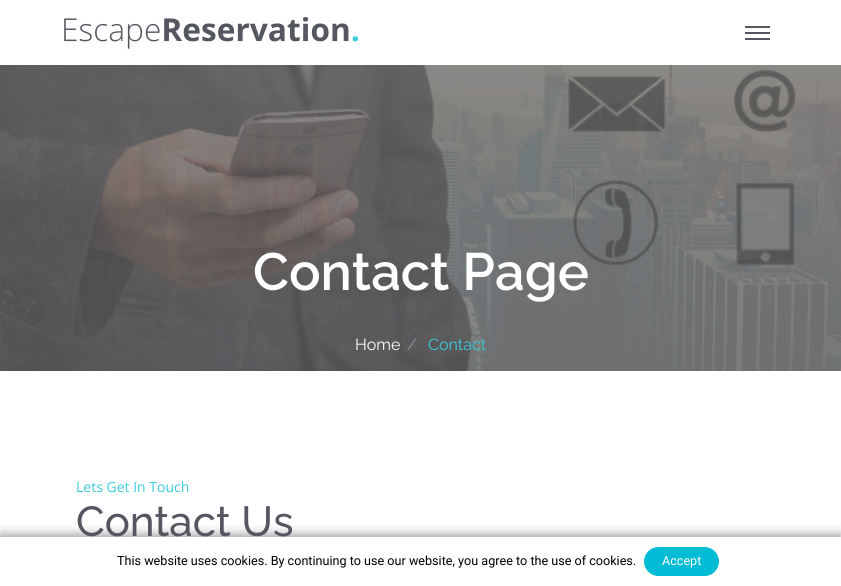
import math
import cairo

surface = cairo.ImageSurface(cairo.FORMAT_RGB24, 841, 586)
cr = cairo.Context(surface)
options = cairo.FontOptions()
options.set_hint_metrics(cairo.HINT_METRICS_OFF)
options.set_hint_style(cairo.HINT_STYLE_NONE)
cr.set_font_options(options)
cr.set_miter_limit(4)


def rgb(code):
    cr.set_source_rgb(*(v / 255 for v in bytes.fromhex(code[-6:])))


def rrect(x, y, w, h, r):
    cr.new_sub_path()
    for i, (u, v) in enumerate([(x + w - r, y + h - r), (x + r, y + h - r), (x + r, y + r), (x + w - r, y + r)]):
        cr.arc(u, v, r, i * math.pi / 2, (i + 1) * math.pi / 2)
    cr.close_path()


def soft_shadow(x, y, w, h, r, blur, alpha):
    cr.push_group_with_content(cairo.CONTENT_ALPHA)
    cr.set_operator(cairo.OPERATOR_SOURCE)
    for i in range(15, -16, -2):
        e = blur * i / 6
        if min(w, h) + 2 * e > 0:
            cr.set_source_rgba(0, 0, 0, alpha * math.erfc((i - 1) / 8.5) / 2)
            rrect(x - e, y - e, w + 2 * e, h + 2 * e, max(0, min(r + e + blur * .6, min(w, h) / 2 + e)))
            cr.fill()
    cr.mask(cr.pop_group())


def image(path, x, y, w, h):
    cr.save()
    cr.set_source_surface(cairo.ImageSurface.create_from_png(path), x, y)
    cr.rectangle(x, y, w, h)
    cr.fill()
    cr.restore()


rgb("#ffffff")
cr.paint()
image("img/1.png", 64, 17, 294, 32)
for x, y, w, h, color in [
    (745, 26, 25, 2, "#545660"),
    (745, 32, 25, 2, "#545660"),
    (745, 38, 25, 2, "#545660"),
]:
    rgb(color)
    cr.rectangle(x, y, w, h)
    cr.fill()
image("img/2.png", 0, 65, 841, 306)
rgb("#646464")
soft_shadow(0, 534, 841, 49, 0, 5, 0.6)
rgb("#ffffff")
cr.rectangle(0, 537, 841, 49)
cr.fill()
rgb("#00bcd4")
rrect(644, 547, 75, 29, 14.5)
cr.fill()
cr.select_font_face("Raleway SemiBold")
cr.set_font_size(52.5)
rgb("#ffffff")
cr.move_to(253, 290)
cr.show_text("Contact Page")
cr.select_font_face("Raleway")
cr.set_font_size(16)
cr.move_to(355, 350)
cr.show_text("Home")
rgb("#8e959b")
cr.move_to(407, 350)
cr.show_text("/")
rgb("#3bcbde")
cr.move_to(428, 350)
cr.show_text("Contact")
cr.select_font_face("Open Sans")
cr.set_font_size(14)
cr.move_to(76, 492)
cr.show_text("Lets Get In Touch")
cr.select_font_face("Raleway Medium")
cr.set_font_size(42)
rgb("#545660")
cr.move_to(76, 536)
cr.show_text("Contact Us")
cr.select_font_face("Roboto")
cr.set_font_size(12.6)
rgb("#000000")
cr.move_to(117, 565)
cr.show_text("This website uses cookies. By continuing to use our website, you agree to the use of cookies.")
rgb("#ffffff")
cr.move_to(662, 565)
cr.show_text("Accept")
surface.write_to_png("page.png")
